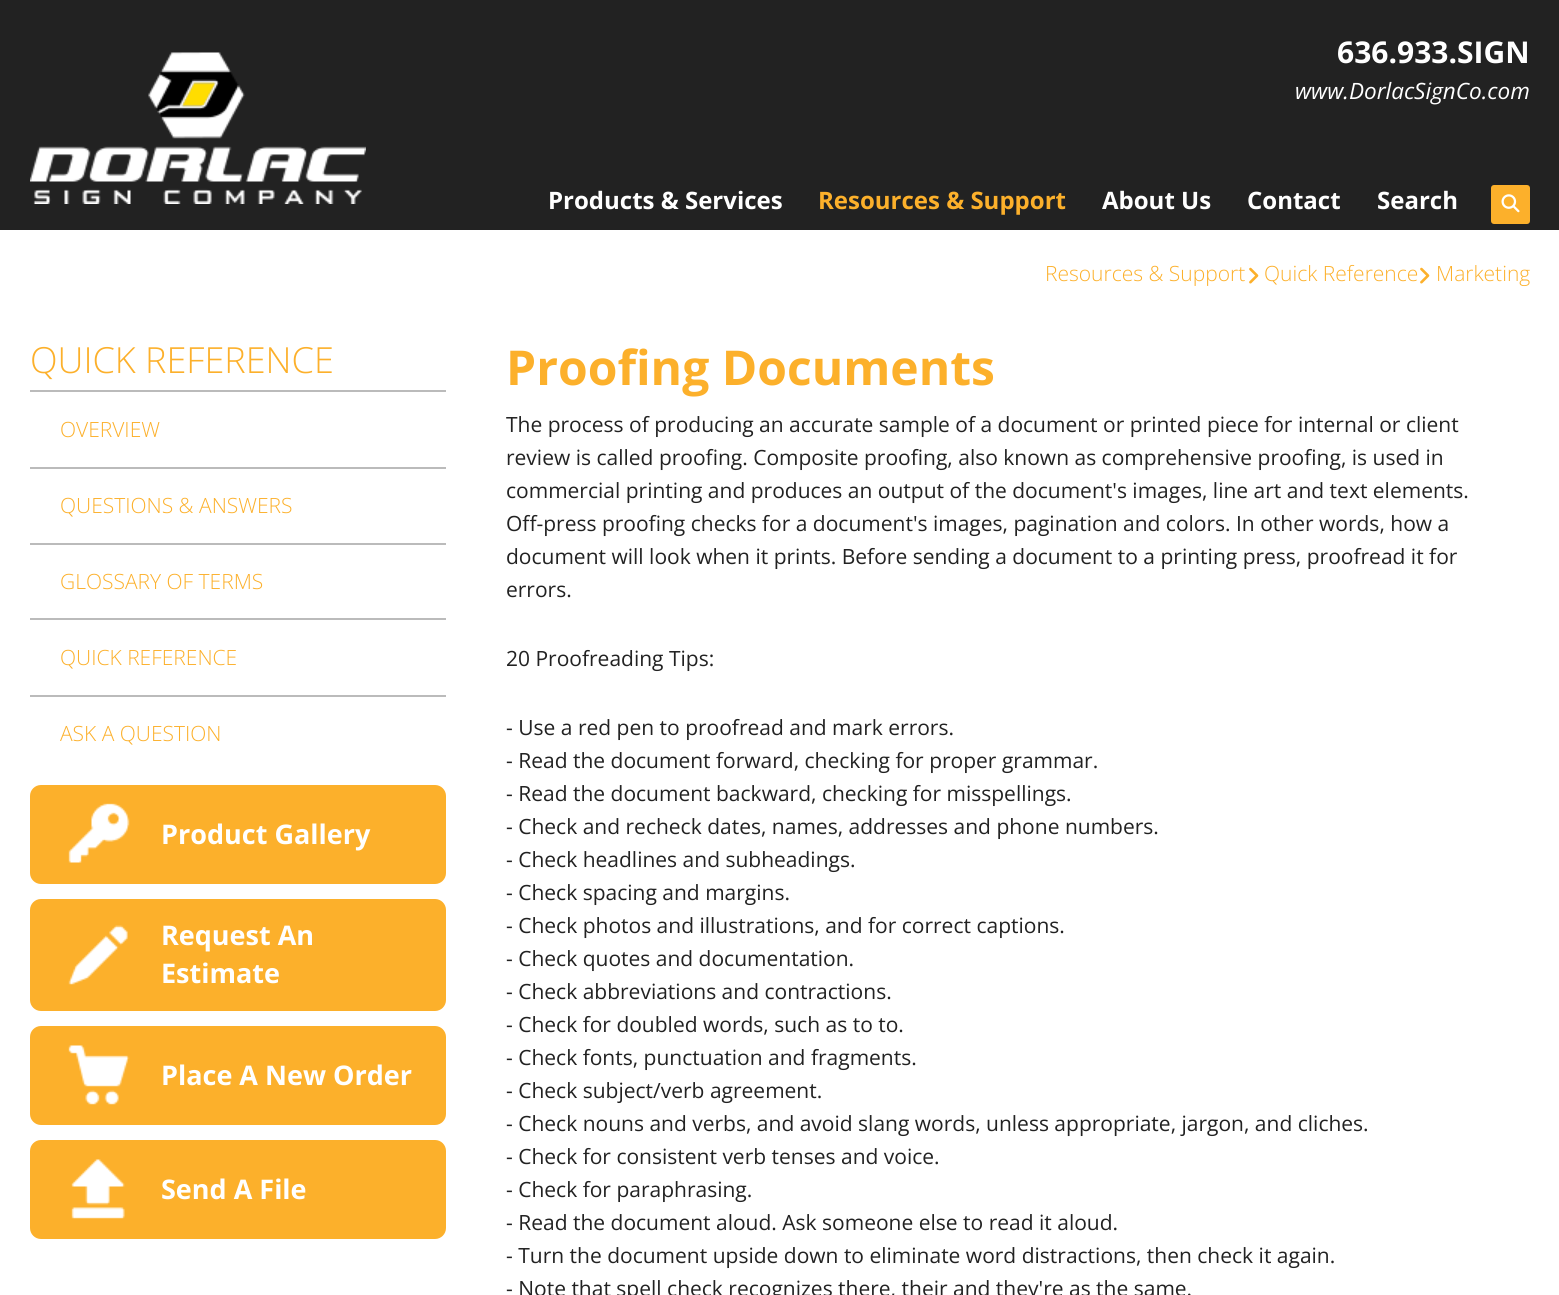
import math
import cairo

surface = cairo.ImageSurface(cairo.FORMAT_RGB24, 1559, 1295)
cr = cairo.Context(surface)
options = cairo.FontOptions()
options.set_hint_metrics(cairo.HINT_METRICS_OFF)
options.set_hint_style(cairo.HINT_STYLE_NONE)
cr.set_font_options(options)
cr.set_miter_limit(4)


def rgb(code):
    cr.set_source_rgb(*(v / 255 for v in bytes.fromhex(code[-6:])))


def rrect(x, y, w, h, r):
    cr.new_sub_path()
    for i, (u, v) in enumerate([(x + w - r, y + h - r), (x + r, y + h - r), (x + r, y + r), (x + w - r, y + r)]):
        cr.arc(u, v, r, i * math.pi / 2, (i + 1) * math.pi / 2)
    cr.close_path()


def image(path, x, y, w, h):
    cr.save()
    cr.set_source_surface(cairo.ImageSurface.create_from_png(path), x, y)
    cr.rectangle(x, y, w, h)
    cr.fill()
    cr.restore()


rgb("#ffffff")
cr.paint()
rgb("#222222")
cr.rectangle(0, 0, 1559, 230)
cr.fill()
image("img/1.png", 30, 52, 336, 152)
rgb("#fcb02b")
rrect(1491, 185, 39, 39, 3)
cr.fill()
image("img/2.png", 1501, 194, 19, 19)
image("img/3.png", 1249, 267, 10, 17)
image("img/3.png", 1420, 267, 10, 17)
for x, y, w, h, color in [
    (30, 390, 416, 2, "#bbbbbb"),
    (30, 467, 416, 2, "#bbbbbb"),
    (30, 543, 416, 2, "#bbbbbb"),
    (30, 618, 416, 2, "#bbbbbb"),
    (30, 695, 416, 2, "#bbbbbb"),
]:
    rgb(color)
    cr.rectangle(x, y, w, h)
    cr.fill()
rgb("#fcb02b")
rrect(30, 785, 416, 99, 11)
cr.fill()
image("img/4.png", 68, 803, 62, 60)
rrect(30, 899, 416, 112, 11)
cr.fill()
image("img/5.png", 68, 925, 60, 60)
rrect(30, 1026, 416, 99, 11)
cr.fill()
image("img/6.png", 68, 1045, 62, 60)
rrect(30, 1140, 416, 99, 11)
cr.fill()
image("img/7.png", 71, 1159, 54, 60)
cr.select_font_face("Open Sans", cairo.FONT_SLANT_NORMAL, cairo.FONT_WEIGHT_BOLD)
cr.set_font_size(30)
rgb("#ffffff")
cr.move_to(1337, 63)
cr.show_text("636.933.SIGN")
cr.select_font_face("Open Sans", cairo.FONT_SLANT_ITALIC)
cr.set_font_size(22.5)
cr.move_to(1295, 99)
cr.show_text("www.DorlacSignCo.com")
cr.select_font_face("Open Sans", cairo.FONT_SLANT_NORMAL, cairo.FONT_WEIGHT_BOLD)
cr.set_font_size(24)
cr.move_to(548, 209)
cr.show_text("Products & Services")
rgb("#fcb02b")
cr.move_to(818, 209)
cr.show_text("Resources & Support")
rgb("#ffffff")
for x, y, s in [
    (1102, 209, "About Us"),
    (1247, 209, "Contact"),
    (1377, 209, "Search"),
]:
    cr.move_to(x, y)
    cr.show_text(s)
cr.select_font_face("Open Sans Light")
cr.set_font_size(21)
rgb("#fcb02b")
for x, y, s in [
    (1045, 281, "Resources & Support"),
    (1264, 281, "Quick Reference"),
    (1436, 281, "Marketing"),
]:
    cr.move_to(x, y)
    cr.show_text(s)
cr.set_font_size(36)
cr.move_to(30, 373)
cr.show_text("QUICK REFERENCE")
cr.set_font_size(21)
for x, y, s in [
    (60, 437, "OVERVIEW"),
    (60, 513, "QUESTIONS & ANSWERS"),
    (60, 589, "GLOSSARY OF TERMS"),
    (60, 665, "QUICK REFERENCE"),
    (60, 741, "ASK A QUESTION"),
]:
    cr.move_to(x, y)
    cr.show_text(s)
cr.select_font_face("Open Sans", cairo.FONT_SLANT_NORMAL, cairo.FONT_WEIGHT_BOLD)
cr.set_font_size(27)
rgb("#ffffff")
for x, y, s in [
    (161, 844, "Product Gallery"),
    (161, 945, "Request An"),
    (161, 983, "Estimate"),
    (161, 1085, "Place A New Order"),
    (161, 1199, "Send A File"),
]:
    cr.move_to(x, y)
    cr.show_text(s)
cr.set_font_size(48)
rgb("#fcb02b")
cr.move_to(506, 385)
cr.show_text("Proofing Documents")
cr.select_font_face("Open Sans")
cr.set_font_size(21)
rgb("#222222")
for x, y, s in [
    (506, 432, "The process of producing an accurate sample of a document or printed piece for internal or client"),
    (506, 465, "review is called proofing. Composite proofing, also known as comprehensive proofing, is used in"),
    (506, 498, "commercial printing and produces an output of the document's images, line art and text elements."),
    (506, 531, "Off-press proofing checks for a document's images, pagination and colors. In other words, how a"),
    (506, 564, "document will look when it prints. Before sending a document to a printing press, proofread it for"),
    (506, 597, "errors."),
    (506, 666, "20 Proofreading Tips:"),
    (506, 735, "- Use a red pen to proofread and mark errors."),
    (506, 768, "- Read the document forward, checking for proper grammar."),
    (506, 801, "- Read the document backward, checking for misspellings."),
    (506, 834, "- Check and recheck dates, names, addresses and phone numbers."),
    (506, 867, "- Check headlines and subheadings."),
    (506, 900, "- Check spacing and margins."),
    (506, 933, "- Check photos and illustrations, and for correct captions."),
    (506, 966, "- Check quotes and documentation."),
    (506, 999, "- Check abbreviations and contractions."),
    (506, 1032, "- Check for doubled words, such as to to."),
    (506, 1065, "- Check fonts, punctuation and fragments."),
    (506, 1098, "- Check subject/verb agreement."),
    (506, 1131, "- Check nouns and verbs, and avoid slang words, unless appropriate, jargon, and cliches."),
    (506, 1164, "- Check for consistent verb tenses and voice."),
    (506, 1197, "- Check for paraphrasing."),
    (506, 1230, "- Read the document aloud. Ask someone else to read it aloud."),
    (506, 1263, "- Turn the document upside down to eliminate word distractions, then check it again."),
    (506, 1296, "- Note that spell check recognizes there, their and they're as the same."),
]:
    cr.move_to(x, y)
    cr.show_text(s)
surface.write_to_png("page.png")
